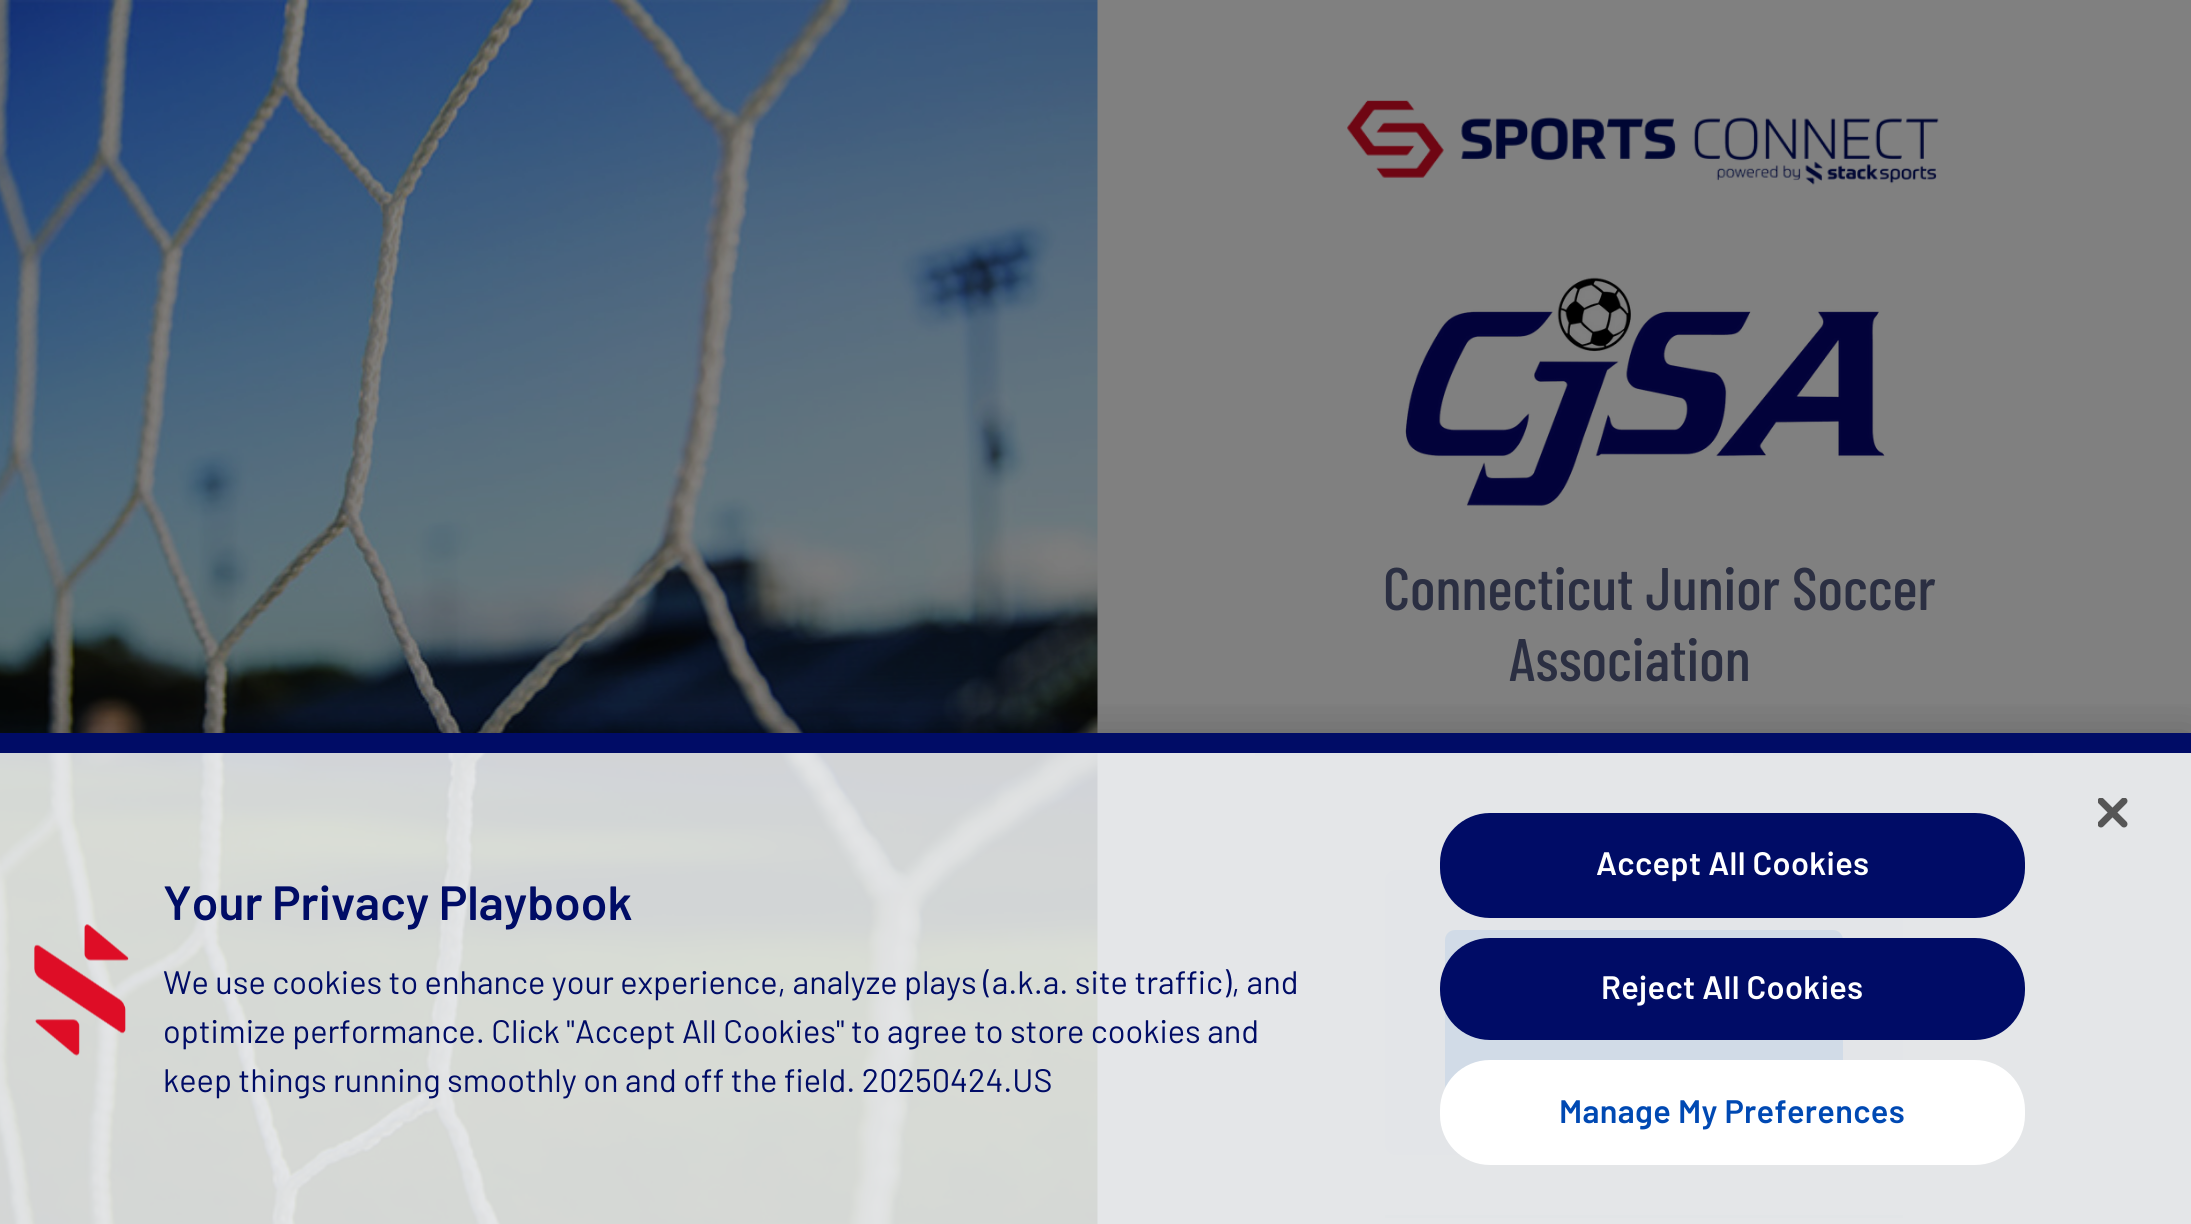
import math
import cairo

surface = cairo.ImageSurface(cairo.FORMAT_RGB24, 2191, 1224)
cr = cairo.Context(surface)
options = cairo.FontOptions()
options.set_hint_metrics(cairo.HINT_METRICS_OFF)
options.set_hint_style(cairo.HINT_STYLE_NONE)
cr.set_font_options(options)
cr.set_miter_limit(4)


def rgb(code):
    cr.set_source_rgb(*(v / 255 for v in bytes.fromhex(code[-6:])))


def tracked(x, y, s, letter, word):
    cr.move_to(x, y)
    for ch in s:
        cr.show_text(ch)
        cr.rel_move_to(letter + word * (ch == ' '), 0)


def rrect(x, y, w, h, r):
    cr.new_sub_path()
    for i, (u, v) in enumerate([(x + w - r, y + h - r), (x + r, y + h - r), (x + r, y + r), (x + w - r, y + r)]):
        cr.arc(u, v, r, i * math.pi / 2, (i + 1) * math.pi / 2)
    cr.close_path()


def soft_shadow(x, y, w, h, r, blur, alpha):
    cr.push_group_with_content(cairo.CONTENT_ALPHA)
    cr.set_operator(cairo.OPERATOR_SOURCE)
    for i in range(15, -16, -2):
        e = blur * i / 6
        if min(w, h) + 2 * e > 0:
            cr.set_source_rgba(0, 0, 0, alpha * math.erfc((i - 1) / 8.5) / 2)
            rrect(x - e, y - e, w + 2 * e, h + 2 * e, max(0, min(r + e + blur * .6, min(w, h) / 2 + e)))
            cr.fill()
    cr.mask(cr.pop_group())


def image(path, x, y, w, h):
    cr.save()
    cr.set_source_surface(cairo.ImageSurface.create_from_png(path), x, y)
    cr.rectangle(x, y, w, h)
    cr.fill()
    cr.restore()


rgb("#808080")
cr.paint()
image("img/1.png", 0, 0, 1098, 1224)
image("img/2.png", 1347, 100, 592, 85)
image("img/3.png", 1405, 277, 480, 229)
rgb("#747679")
cr.rectangle(1255, 753, 778, 3)
cr.fill()
rgb("#808080")
cr.rectangle(1558, 753, 175, 3)
cr.fill()
rgb("#7a7b7d")
rrect(1385, 870, 518, 285, 10)
cr.fill()
rgb("#003976")
rrect(1445, 930, 398, 165, 10)
cr.fill()
rgb("#747679")
cr.rectangle(1385, 1215, 518, 3)
cr.fill()
cr.save()
cr.rectangle(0, 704, 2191, 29)
cr.clip()
rgb("#000000")
soft_shadow(0, 733, 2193, 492, 0, 22.5, 0.2)
cr.restore()
cr.set_source_rgba(0.961, 0.973, 0.98, 0.85)
cr.rectangle(0, 753, 2191, 471)
cr.fill()
image("img/4.png", 2098, 798, 30, 30)
rgb("#000c66")
cr.rectangle(0, 733, 2191, 20)
cr.fill()
image("img/5.png", 34, 924, 95, 132)
rrect(1441.5, 814.5, 582, 102, 48.5)
cr.fill_preserve()
cr.set_line_width(3)
cr.stroke()
rrect(1441.5, 939.5, 582, 99, 48.5)
cr.fill_preserve()
cr.stroke()
rgb("#ffffff")
rrect(1441.5, 1061.5, 582, 102, 48.5)
cr.fill_preserve()
cr.stroke()
cr.select_font_face("Barlow Condensed Medium")
cr.set_font_size(60)
rgb("#2b2f42")
cr.move_to(1383, 610)
cr.show_text("Connecticut Junior Soccer")
cr.move_to(1509, 681)
cr.show_text("Association")
cr.select_font_face("Barlow SemiBold")
cr.set_font_size(48)
rgb("#000c66")
cr.move_to(163, 920)
cr.show_text("Your Privacy Playbook")
cr.select_font_face("Barlow")
cr.set_font_size(32.5)
for x, y, s in [
    (163, 994, "We use cookies to enhance your experience, analyze plays (a.k.a. site traffic), and"),
    (163, 1043, "optimize performance. Click \"Accept All Cookies\" to agree to store cookies and"),
    (163, 1092, "keep things running smoothly on and off the field. 20250424.US"),
]:
    cr.move_to(x, y)
    cr.show_text(s)
cr.select_font_face("Barlow SemiBold")
rgb("#ffffff")
tracked(1596, 875, "Accept All Cookies", 0.3, 0)
tracked(1601, 999, "Reject All Cookies", 0.3, 0)
rgb("#0049b3")
tracked(1559, 1123, "Manage My Preferences", 0.3, 0)
surface.write_to_png("page.png")
